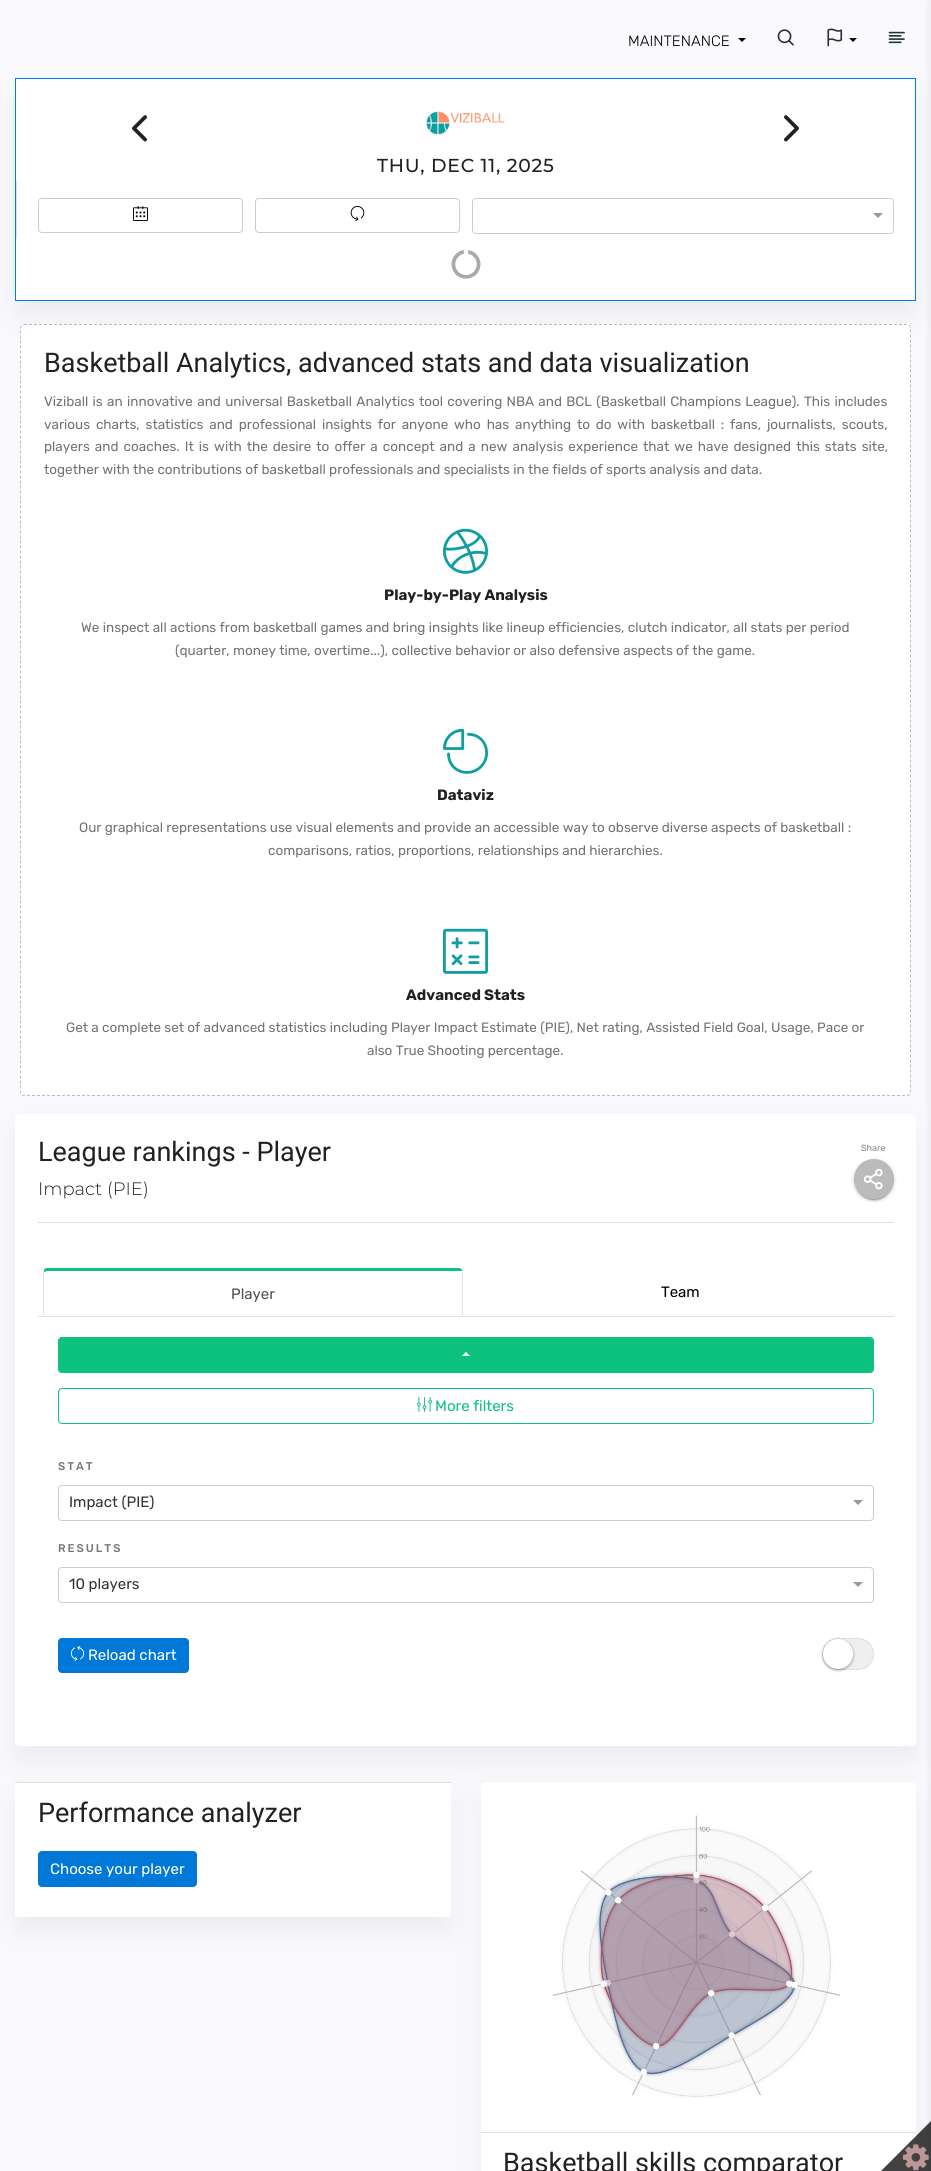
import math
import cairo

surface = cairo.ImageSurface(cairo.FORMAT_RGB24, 931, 2171)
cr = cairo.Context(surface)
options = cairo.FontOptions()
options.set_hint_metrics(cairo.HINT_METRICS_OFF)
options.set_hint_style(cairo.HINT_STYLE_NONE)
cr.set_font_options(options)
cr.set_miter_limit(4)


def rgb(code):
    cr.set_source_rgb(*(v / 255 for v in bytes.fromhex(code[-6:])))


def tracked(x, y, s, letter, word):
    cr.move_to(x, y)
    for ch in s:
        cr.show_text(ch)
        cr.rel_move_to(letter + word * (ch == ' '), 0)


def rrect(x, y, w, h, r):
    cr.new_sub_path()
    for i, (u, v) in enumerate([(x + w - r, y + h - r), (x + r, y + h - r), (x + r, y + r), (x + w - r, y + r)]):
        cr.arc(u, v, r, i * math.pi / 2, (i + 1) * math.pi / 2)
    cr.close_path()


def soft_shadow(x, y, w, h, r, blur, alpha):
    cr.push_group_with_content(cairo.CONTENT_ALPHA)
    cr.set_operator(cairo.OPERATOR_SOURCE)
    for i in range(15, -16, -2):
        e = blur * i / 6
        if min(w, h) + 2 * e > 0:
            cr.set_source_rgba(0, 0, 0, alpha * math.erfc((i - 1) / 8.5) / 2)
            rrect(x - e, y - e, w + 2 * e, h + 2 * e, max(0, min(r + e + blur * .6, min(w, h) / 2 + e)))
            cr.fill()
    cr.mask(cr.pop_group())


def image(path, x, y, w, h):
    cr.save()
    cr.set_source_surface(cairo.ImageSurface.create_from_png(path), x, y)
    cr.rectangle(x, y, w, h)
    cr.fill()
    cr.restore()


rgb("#f9f9fe")
cr.paint()
rgb("#000000")
cr.new_path()
cr.move_to(738, 38)
cr.line_to(746, 38)
cr.line_to(742, 42)
cr.close_path()
cr.fill()
rgb("#000000")
soft_shadow(15, 93, 901, 223, 4, 16, 0.06)
image("img/1.png", 777, 29, 17, 17)
image("img/2.png", 827, 28, 16, 19)
rgb("#000000")
cr.new_path()
cr.move_to(849, 38)
cr.line_to(857, 38)
cr.line_to(853, 42)
cr.close_path()
cr.fill()
image("img/3.png", 888, 31, 17, 13)
rgb("#ffffff")
rrect(20, 324, 891, 772, 4)
cr.fill()
cr.new_path()
cr.move_to(24, 324.5)
cr.line_to(907, 324.5)
cr.curve_to(909, 324.5, 910.5, 326, 910.5, 328)
cr.line_to(910.5, 1092)
cr.curve_to(910.5, 1094, 909, 1095.5, 907, 1095.5)
cr.line_to(24, 1095.5)
cr.curve_to(22, 1095.5, 20.5, 1094, 20.5, 1092)
cr.line_to(20.5, 328)
cr.curve_to(20.5, 326, 22, 324.5, 24, 324.5)
cr.close_path()
rgb("#bbbbbb")
cr.set_line_width(1)
cr.set_dash([3, 2])
cr.stroke()
rgb("#000000")
soft_shadow(15, 1129, 901, 632, 4, 16, 0.06)
soft_shadow(15, 1797, 436, 135, 4, 16, 0.06)
rgb("#ffffff")
cr.new_path()
cr.move_to(15, 1782)
cr.line_to(451, 1782)
cr.line_to(451, 1914)
cr.curve_to(451, 1915.5, 449.5, 1917, 448, 1917)
cr.line_to(18, 1917)
cr.curve_to(16.5, 1917, 15, 1915.5, 15, 1914)
cr.close_path()
cr.fill()
rgb("#dfdfdf")
cr.rectangle(15, 1782, 436, 1)
cr.fill()
rgb("#000000")
soft_shadow(481, 1797, 435, 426, 4, 16, 0.06)
rgb("#ffffff")
rrect(481, 1782, 435, 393, 4)
cr.fill()
rgb("#dfdfdf")
cr.rectangle(481, 2132, 435, 1)
cr.fill()
cr.set_source_rgba(0.078, 0.078, 0.078, 0.8)
cr.new_path()
cr.move_to(931, 2171)
cr.line_to(881, 2171)
cr.line_to(931, 2121)
cr.close_path()
cr.fill()
image("img/17.png", 903, 2144, 26, 27)
rgb("#000000")
soft_shadow(931, 0, 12, 2171, 0, 4, 0.1)
rgb("#ffffff")
rrect(15, 78, 901, 223, 4)
cr.fill()
cr.rectangle(15.5, 78.5, 900, 222)
rgb("#007bff")
cr.set_dash([])
cr.stroke()
image("img/4.png", 132, 115, 15, 27)
image("img/5.png", 784, 115, 15, 27)
image("img/6.png", 426, 111, 79, 24)
rgb("#dee2e6")
cr.rectangle(16, 181, 1, 58)
cr.fill()
rrect(38.5, 198.5, 204, 34, 3.5)
rgb("#cccccc")
cr.stroke()
image("img/7.png", 133, 206, 15, 15)
rrect(255.5, 198.5, 204, 34, 3.5)
cr.stroke()
image("img/8.png", 350, 205, 15, 16)
rrect(472.5, 198.5, 421, 35, 3.5)
cr.stroke()
rgb("#999999")
cr.new_path()
cr.move_to(873, 213)
cr.line_to(883, 213)
cr.line_to(878, 218)
cr.close_path()
cr.fill()
image("img/9.png", 451, 250, 30, 29)
image("img/10.png", 443, 528, 45, 46)
image("img/11.png", 443, 728, 45, 46)
image("img/12.png", 443, 928, 45, 46)
rgb("#ffffff")
rrect(15, 1114, 901, 632, 4)
cr.fill()
rgb("#000000")
soft_shadow(856, 1164, 36, 36, 18, 0.5, 0.2)
soft_shadow(854, 1160, 40, 40, 20, 2.5, 0.12)
soft_shadow(854, 1161, 40, 40, 20, 1, 0.14)
rgb("#bbbbbb")
cr.arc(874, 1179, 20, 0, 2 * math.pi)
cr.fill()
image("img/13.png", 863, 1168, 20, 22)
rgb("#dddddd")
cr.rectangle(38, 1222, 856, 1)
cr.fill()
rgb("#dee2e6")
cr.rectangle(38, 1316, 856, 1)
cr.fill()
rgb("#0cc27e")
cr.new_path()
cr.move_to(47, 1268)
cr.curve_to(46, 1268, 44, 1269, 44, 1270)
cr.line_to(44, 1272)
cr.line_to(47, 1271)
cr.line_to(459, 1271)
cr.curve_to(461, 1271, 461, 1271, 462, 1271)
cr.line_to(462, 1270)
cr.curve_to(462, 1269, 460, 1268, 459, 1268)
cr.close_path()
cr.fill()
rgb("#dee2e6")
cr.new_path()
cr.move_to(463, 1316)
cr.line_to(463, 1272)
cr.line_to(462, 1270)
cr.line_to(462, 1271)
cr.line_to(462, 1315)
cr.close_path()
cr.fill()
rgb("#ffffff")
cr.new_path()
cr.move_to(463, 1316)
cr.line_to(462, 1315)
cr.line_to(44, 1315)
cr.line_to(43, 1316)
cr.close_path()
cr.fill()
rgb("#dee2e6")
cr.new_path()
cr.move_to(43, 1316)
cr.line_to(44, 1315)
cr.line_to(44, 1272)
cr.line_to(44, 1270)
cr.line_to(43, 1272)
cr.close_path()
cr.fill()
rgb("#0cc27e")
rrect(58.5, 1337.5, 815, 35, 3.5)
cr.fill_preserve()
cr.stroke()
rgb("#ffffff")
cr.new_path()
cr.move_to(470, 1356)
cr.line_to(462, 1356)
cr.line_to(466, 1352)
cr.close_path()
cr.fill()
rrect(58.5, 1388.5, 815, 35, 3.5)
rgb("#0cc27e")
cr.stroke()
image("img/14.png", 417, 1397, 15, 15)
rrect(58.5, 1485.5, 815, 35, 3.5)
rgb("#cccccc")
cr.stroke()
rgb("#999999")
cr.new_path()
cr.move_to(853, 1500)
cr.line_to(863, 1500)
cr.line_to(858, 1505)
cr.close_path()
cr.fill()
rrect(58.5, 1567.5, 815, 35, 3.5)
rgb("#cccccc")
cr.stroke()
rgb("#999999")
cr.new_path()
cr.move_to(853, 1582)
cr.line_to(863, 1582)
cr.line_to(858, 1587)
cr.close_path()
cr.fill()
rgb("#0078d7")
rrect(58, 1638, 131, 35, 4)
cr.fill()
image("img/15.png", 70, 1646, 15, 15)
rgb("#efefef")
rrect(822.5, 1638.5, 51, 31, 15.5)
cr.fill_preserve()
rgb("#dfdfdf")
cr.stroke()
rgb("#000000")
soft_shadow(823, 1640, 30, 30, 15, 1.5, 0.4)
rgb("#ffffff")
cr.arc(838, 1654, 15, 0, 2 * math.pi)
cr.fill()
rgb("#0078d7")
rrect(38.5, 1851.5, 158, 35, 3.5)
cr.fill_preserve()
cr.stroke()
image("img/16.png", 552, 1815, 289, 283)
cr.select_font_face("Rubik Light")
cr.set_font_size(15)
rgb("#000000")
cr.move_to(628, 46)
cr.show_text("MAINTENANCE")
cr.select_font_face("Montserrat Medium")
cr.set_font_size(18.75)
rgb("#212121")
tracked(377, 172, "THU, DEC 11, 2025", 0.75, 0)
cr.select_font_face("Roboto")
cr.set_font_size(27)
cr.move_to(44, 372)
cr.show_text("Basketball Analytics, advanced stats and data visualization")
cr.select_font_face("Rubik")
cr.set_font_size(13.5)
rgb("#747373")
tracked(44, 406, "Viziball is an innovative and universal Basketball Analytics tool covering NBA and BCL (Basketball Champions League). This includes", 0, 1)
tracked(44, 429, "various charts, statistics and professional insights for anyone who has anything to do with basketball : fans, journalists, scouts,", 0, 2.5)
tracked(44, 451, "players and coaches. It is with the desire to offer a concept and a new analysis experience that we have designed this stats site,", 0, 1.75)
cr.move_to(44, 474)
cr.show_text("together with the contributions of basketball professionals and specialists in the fields of sports analysis and data.")
cr.select_font_face("Rubik", cairo.FONT_SLANT_NORMAL, cairo.FONT_WEIGHT_BOLD)
cr.set_font_size(15)
rgb("#212121")
cr.move_to(384, 600)
cr.show_text("Play-by-Play Analysis")
cr.select_font_face("Rubik")
cr.set_font_size(13.5)
rgb("#747373")
cr.move_to(81, 632)
cr.show_text("We inspect all actions from basketball games and bring insights like lineup efficiencies, clutch indicator, all stats per period")
cr.move_to(175, 655)
cr.show_text("(quarter, money time, overtime...), collective behavior or also defensive aspects of the game.")
cr.select_font_face("Rubik", cairo.FONT_SLANT_NORMAL, cairo.FONT_WEIGHT_BOLD)
cr.set_font_size(15)
rgb("#212121")
cr.move_to(437, 800)
cr.show_text("Dataviz")
cr.select_font_face("Rubik")
cr.set_font_size(13.5)
rgb("#747373")
cr.move_to(79, 832)
cr.show_text("Our graphical representations use visual elements and provide an accessible way to observe diverse aspects of basketball :")
cr.move_to(268, 855)
cr.show_text("comparisons, ratios, proportions, relationships and hierarchies.")
cr.select_font_face("Rubik", cairo.FONT_SLANT_NORMAL, cairo.FONT_WEIGHT_BOLD)
cr.set_font_size(15)
rgb("#212121")
cr.move_to(406, 1000)
cr.show_text("Advanced Stats")
cr.select_font_face("Rubik")
cr.set_font_size(13.5)
rgb("#747373")
cr.move_to(66, 1032)
cr.show_text("Get a complete set of advanced statistics including Player Impact Estimate (PIE), Net rating, Assisted Field Goal, Usage, Pace or")
cr.move_to(367, 1055)
cr.show_text("also True Shooting percentage.")
cr.select_font_face("Roboto")
cr.set_font_size(27)
rgb("#212121")
cr.move_to(38, 1161)
cr.show_text("League rankings - Player")
cr.select_font_face("Rubik")
cr.set_font_size(9)
rgb("#888888")
cr.move_to(861, 1151)
cr.show_text("Share")
cr.select_font_face("Montserrat Light")
cr.set_font_size(18)
rgb("#212121")
cr.move_to(38, 1195)
cr.show_text("Impact (PIE)")
cr.select_font_face("Rubik")
cr.set_font_size(15)
rgb("#495057")
cr.move_to(231, 1299)
cr.show_text("Player")
rgb("#000000")
cr.move_to(661, 1297)
cr.show_text("Team")
rgb("#0cc27e")
cr.move_to(435, 1411)
cr.show_text("More filters")
cr.select_font_face("Rubik Medium")
cr.set_font_size(11.25)
rgb("#75787d")
tracked(58, 1470, "STAT", 2, 0)
cr.select_font_face("Rubik")
cr.set_font_size(15)
rgb("#333333")
cr.move_to(69, 1507)
cr.show_text("Impact (PIE)")
cr.select_font_face("Rubik Medium")
cr.set_font_size(11.25)
rgb("#75787d")
tracked(58, 1552, "RESULTS", 2, 0)
cr.select_font_face("Rubik")
cr.set_font_size(15)
rgb("#333333")
cr.move_to(69, 1589)
cr.show_text("10 players")
rgb("#ffffff")
cr.move_to(88, 1660)
cr.show_text("Reload chart")
cr.select_font_face("Roboto")
cr.set_font_size(27)
rgb("#212121")
cr.move_to(38, 1822)
cr.show_text("Performance analyzer")
cr.select_font_face("Rubik")
cr.set_font_size(15)
rgb("#ffffff")
cr.move_to(50, 1874)
cr.show_text("Choose your player")
cr.select_font_face("Roboto")
cr.set_font_size(27)
rgb("#212121")
cr.move_to(503, 2172)
cr.show_text("Basketball skills comparator")
surface.write_to_png("page.png")
